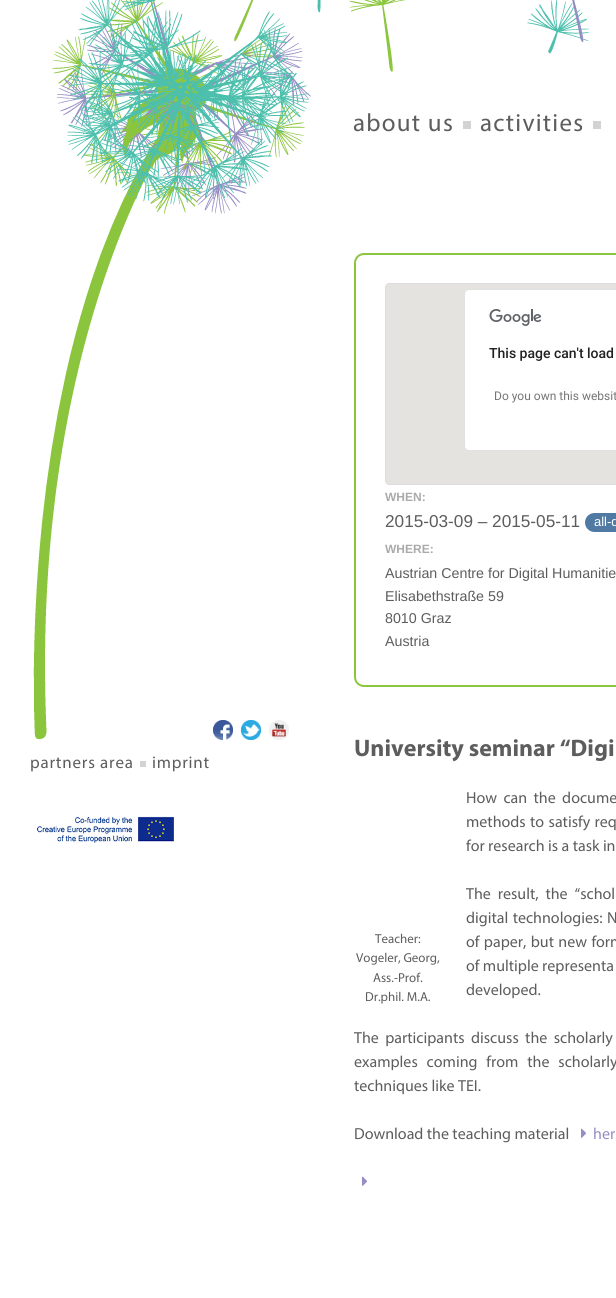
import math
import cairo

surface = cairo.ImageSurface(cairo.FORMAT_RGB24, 616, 1298)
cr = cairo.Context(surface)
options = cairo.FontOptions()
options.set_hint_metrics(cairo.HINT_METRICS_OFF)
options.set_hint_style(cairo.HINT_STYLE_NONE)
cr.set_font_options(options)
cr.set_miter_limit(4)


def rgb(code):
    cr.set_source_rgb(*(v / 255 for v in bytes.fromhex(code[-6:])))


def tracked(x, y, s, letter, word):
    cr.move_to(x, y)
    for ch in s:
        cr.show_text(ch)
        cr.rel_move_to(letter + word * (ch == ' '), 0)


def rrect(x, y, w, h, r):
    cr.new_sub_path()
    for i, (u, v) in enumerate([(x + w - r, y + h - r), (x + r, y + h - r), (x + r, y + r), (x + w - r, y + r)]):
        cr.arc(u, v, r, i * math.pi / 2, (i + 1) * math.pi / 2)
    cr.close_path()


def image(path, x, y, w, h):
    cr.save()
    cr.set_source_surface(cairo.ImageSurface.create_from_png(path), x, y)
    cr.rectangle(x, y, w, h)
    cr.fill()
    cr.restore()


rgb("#ffffff")
cr.paint()
image("img/1.png", 33, 0, 556, 740)
rgb("#d3d3d3")
cr.rectangle(463, 121, 8, 8)
cr.fill()
cr.rectangle(593, 121, 8, 8)
cr.fill()
image("img/2.png", 213, 720, 20, 20)
image("img/3.png", 241, 720, 20, 20)
image("img/4.png", 269, 720, 20, 20)
cr.rectangle(140, 761, 6, 6)
cr.fill()
image("img/5.png", 37, 816, 137, 27)
rrect(355, 254, 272, 432, 9)
rgb("#8cc63f")
cr.stroke()
rrect(385.5, 283.5, 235, 201, 3.5)
rgb("#dddddd")
cr.set_line_width(1)
cr.stroke()
rgb("#e5e3df")
cr.rectangle(386, 284, 230, 200)
cr.fill()
rgb("#ffffff")
rrect(464, 289, 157, 162, 5)
cr.fill()
rrect(464.5, 289.5, 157, 161, 4.5)
cr.set_source_rgba(0, 0, 0, 0.12)
cr.stroke()
image("img/6.png", 489, 309, 52, 17)
rgb("#507aa3")
rrect(585, 513, 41, 19, 9.5)
cr.fill()
image("img/7.png", 581, 1128, 6, 10)
image("img/7.png", 362, 1176, 6, 10)
cr.select_font_face("Myriad")
cr.set_font_size(25)
rgb("#5d5d5d")
tracked(353, 131, "about us", 1.25, 0)
tracked(480, 131, "activities", 1.25, 0)
cr.set_font_size(17)
tracked(30, 768, "partners area", 0.8, 0)
tracked(152, 768, "imprint", 0.8, 0)
cr.select_font_face("Roboto Medium")
cr.set_font_size(14)
rgb("#212121")
cr.move_to(489, 358)
cr.show_text("This page can't load")
cr.select_font_face("Roboto")
cr.set_font_size(12)
rgb("#757575")
cr.move_to(494, 400)
cr.show_text("Do you own this websit")
cr.select_font_face("Liberation Sans", cairo.FONT_SLANT_NORMAL, cairo.FONT_WEIGHT_BOLD)
rgb("#aaaaaa")
cr.move_to(385, 501)
cr.show_text("WHEN:")
cr.select_font_face("Liberation Sans")
cr.set_font_size(17.2)
rgb("#5d5d5d")
cr.move_to(385, 527)
cr.show_text("2015-03-09 – 2015-05-11")
cr.set_font_size(13)
rgb("#ffffff")
cr.move_to(594, 526)
cr.show_text("all-d")
cr.select_font_face("Liberation Sans", cairo.FONT_SLANT_NORMAL, cairo.FONT_WEIGHT_BOLD)
cr.set_font_size(12)
rgb("#aaaaaa")
cr.move_to(385, 553)
cr.show_text("WHERE:")
cr.select_font_face("Liberation Sans")
cr.set_font_size(14.25)
rgb("#5d5d5d")
for x, y, s in [
    (385, 578, "Austrian Centre for Digital Humanitie"),
    (385, 601, "Elisabethstraße 59"),
    (385, 623, "8010 Graz"),
    (385, 646, "Austria"),
]:
    cr.move_to(x, y)
    cr.show_text(s)
cr.select_font_face("Myriad", cairo.FONT_SLANT_NORMAL, cairo.FONT_WEIGHT_BOLD)
cr.set_font_size(24)
cr.move_to(354, 756)
cr.show_text("University seminar “Digi")
cr.select_font_face("Myriad")
cr.set_font_size(16)
tracked(466, 803, "How can the docume", 0, 3)
tracked(466, 827, "methods to satisfy req", 0, 1)
cr.move_to(466, 851)
cr.show_text("for research is a task in")
cr.set_font_size(13)
for x, y, s in [
    (375, 943, "Teacher:"),
    (356, 962, "Vogeler, Georg,"),
    (373, 982, "Ass.-Prof."),
    (365, 1001, "Dr.phil. M.A."),
]:
    cr.move_to(x, y)
    cr.show_text(s)
cr.set_font_size(16)
tracked(466, 899, "The result, the “schol", 0, 3.5)
tracked(466, 923, "digital technologies: N", 0, 1)
tracked(466, 947, "of paper, but new form", 0, 1)
cr.move_to(466, 971)
cr.show_text("of multiple representa")
cr.move_to(466, 995)
cr.show_text("developed.")
tracked(354, 1043, "The participants discuss the scholarly", 0, 3)
tracked(354, 1067, "examples coming from the scholarly", 0, 5.5)
cr.move_to(354, 1091)
cr.show_text("techniques like TEI.")
cr.move_to(354, 1139)
cr.show_text("Download the teaching material")
rgb("#958dc4")
cr.move_to(593, 1139)
cr.show_text("her")
surface.write_to_png("page.png")
